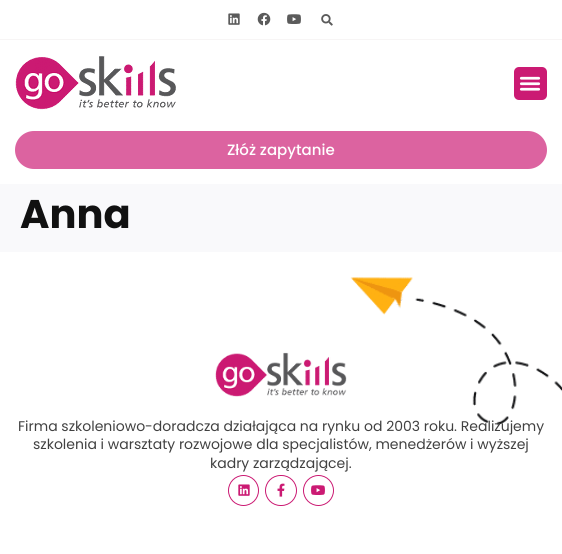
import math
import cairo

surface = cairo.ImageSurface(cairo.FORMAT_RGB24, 562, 554)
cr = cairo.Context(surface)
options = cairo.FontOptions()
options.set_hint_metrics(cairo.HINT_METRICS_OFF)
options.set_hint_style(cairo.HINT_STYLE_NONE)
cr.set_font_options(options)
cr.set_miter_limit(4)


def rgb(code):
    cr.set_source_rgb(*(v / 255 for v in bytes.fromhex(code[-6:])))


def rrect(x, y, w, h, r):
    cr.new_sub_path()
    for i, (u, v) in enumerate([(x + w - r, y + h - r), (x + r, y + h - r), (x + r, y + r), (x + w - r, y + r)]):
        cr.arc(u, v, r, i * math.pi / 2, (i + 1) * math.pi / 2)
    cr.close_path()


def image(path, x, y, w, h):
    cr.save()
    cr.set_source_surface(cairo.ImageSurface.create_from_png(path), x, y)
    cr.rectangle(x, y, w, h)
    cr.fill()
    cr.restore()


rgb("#f9f9fb")
cr.paint()
rgb("#ffffff")
cr.rectangle(0, 0, 562, 39)
cr.fill()
rgb("#f7f5f5")
cr.rectangle(0, 39, 562, 1)
cr.fill()
image("img/1.png", 228, 13, 12, 12)
image("img/2.png", 257, 12, 14, 14)
image("img/3.png", 287, 14, 14, 10)
image("img/4.png", 321, 14, 12, 12)
rgb("#ffffff")
cr.rectangle(0, 40, 562, 144)
cr.fill()
image("img/5.png", 15, 56, 161, 54)
rgb("#cb1a73")
rrect(514, 67, 33, 33, 5)
cr.fill()
image("img/6.png", 519, 76, 22, 15)
rgb("#dc63a0")
rrect(15, 131, 532, 38, 19)
cr.fill()
rgb("#ffffff")
cr.rectangle(0, 252, 562, 302)
cr.fill()
image("img/7.png", 350, 277, 212, 149)
image("img/8.png", 215, 352, 132, 45)
cr.arc(243.5, 490.5, 15, 0, 2 * math.pi)
rgb("#cb1a73")
cr.set_line_width(1)
cr.stroke()
image("img/9.png", 238, 484, 12, 12)
rrect(265.5, 475.5, 31, 30, 15)
cr.stroke()
image("img/10.png", 277, 483, 8, 14)
cr.arc(318.5, 490.5, 15, 0, 2 * math.pi)
cr.stroke()
image("img/11.png", 311, 485, 14, 10)
cr.select_font_face("Poppins Medium")
cr.set_font_size(15)
rgb("#ffffff")
cr.move_to(227, 155)
cr.show_text("Złóż zapytanie")
cr.select_font_face("Poppins", cairo.FONT_SLANT_NORMAL, cairo.FONT_WEIGHT_BOLD)
cr.set_font_size(40)
rgb("#111111")
cr.move_to(20, 228)
cr.show_text("Anna")
cr.select_font_face("Poppins")
cr.set_font_size(14)
rgb("#414141")
for x, y, s in [
    (18, 431, "Firma szkoleniowo-doradcza działająca na rynku od 2003 roku. Realizujemy"),
    (33, 449, "szkolenia i warsztaty rozwojowe dla specjalistów, menedżerów i wyższej"),
    (210, 468, "kadry zarządzającej."),
]:
    cr.move_to(x, y)
    cr.show_text(s)
surface.write_to_png("page.png")
